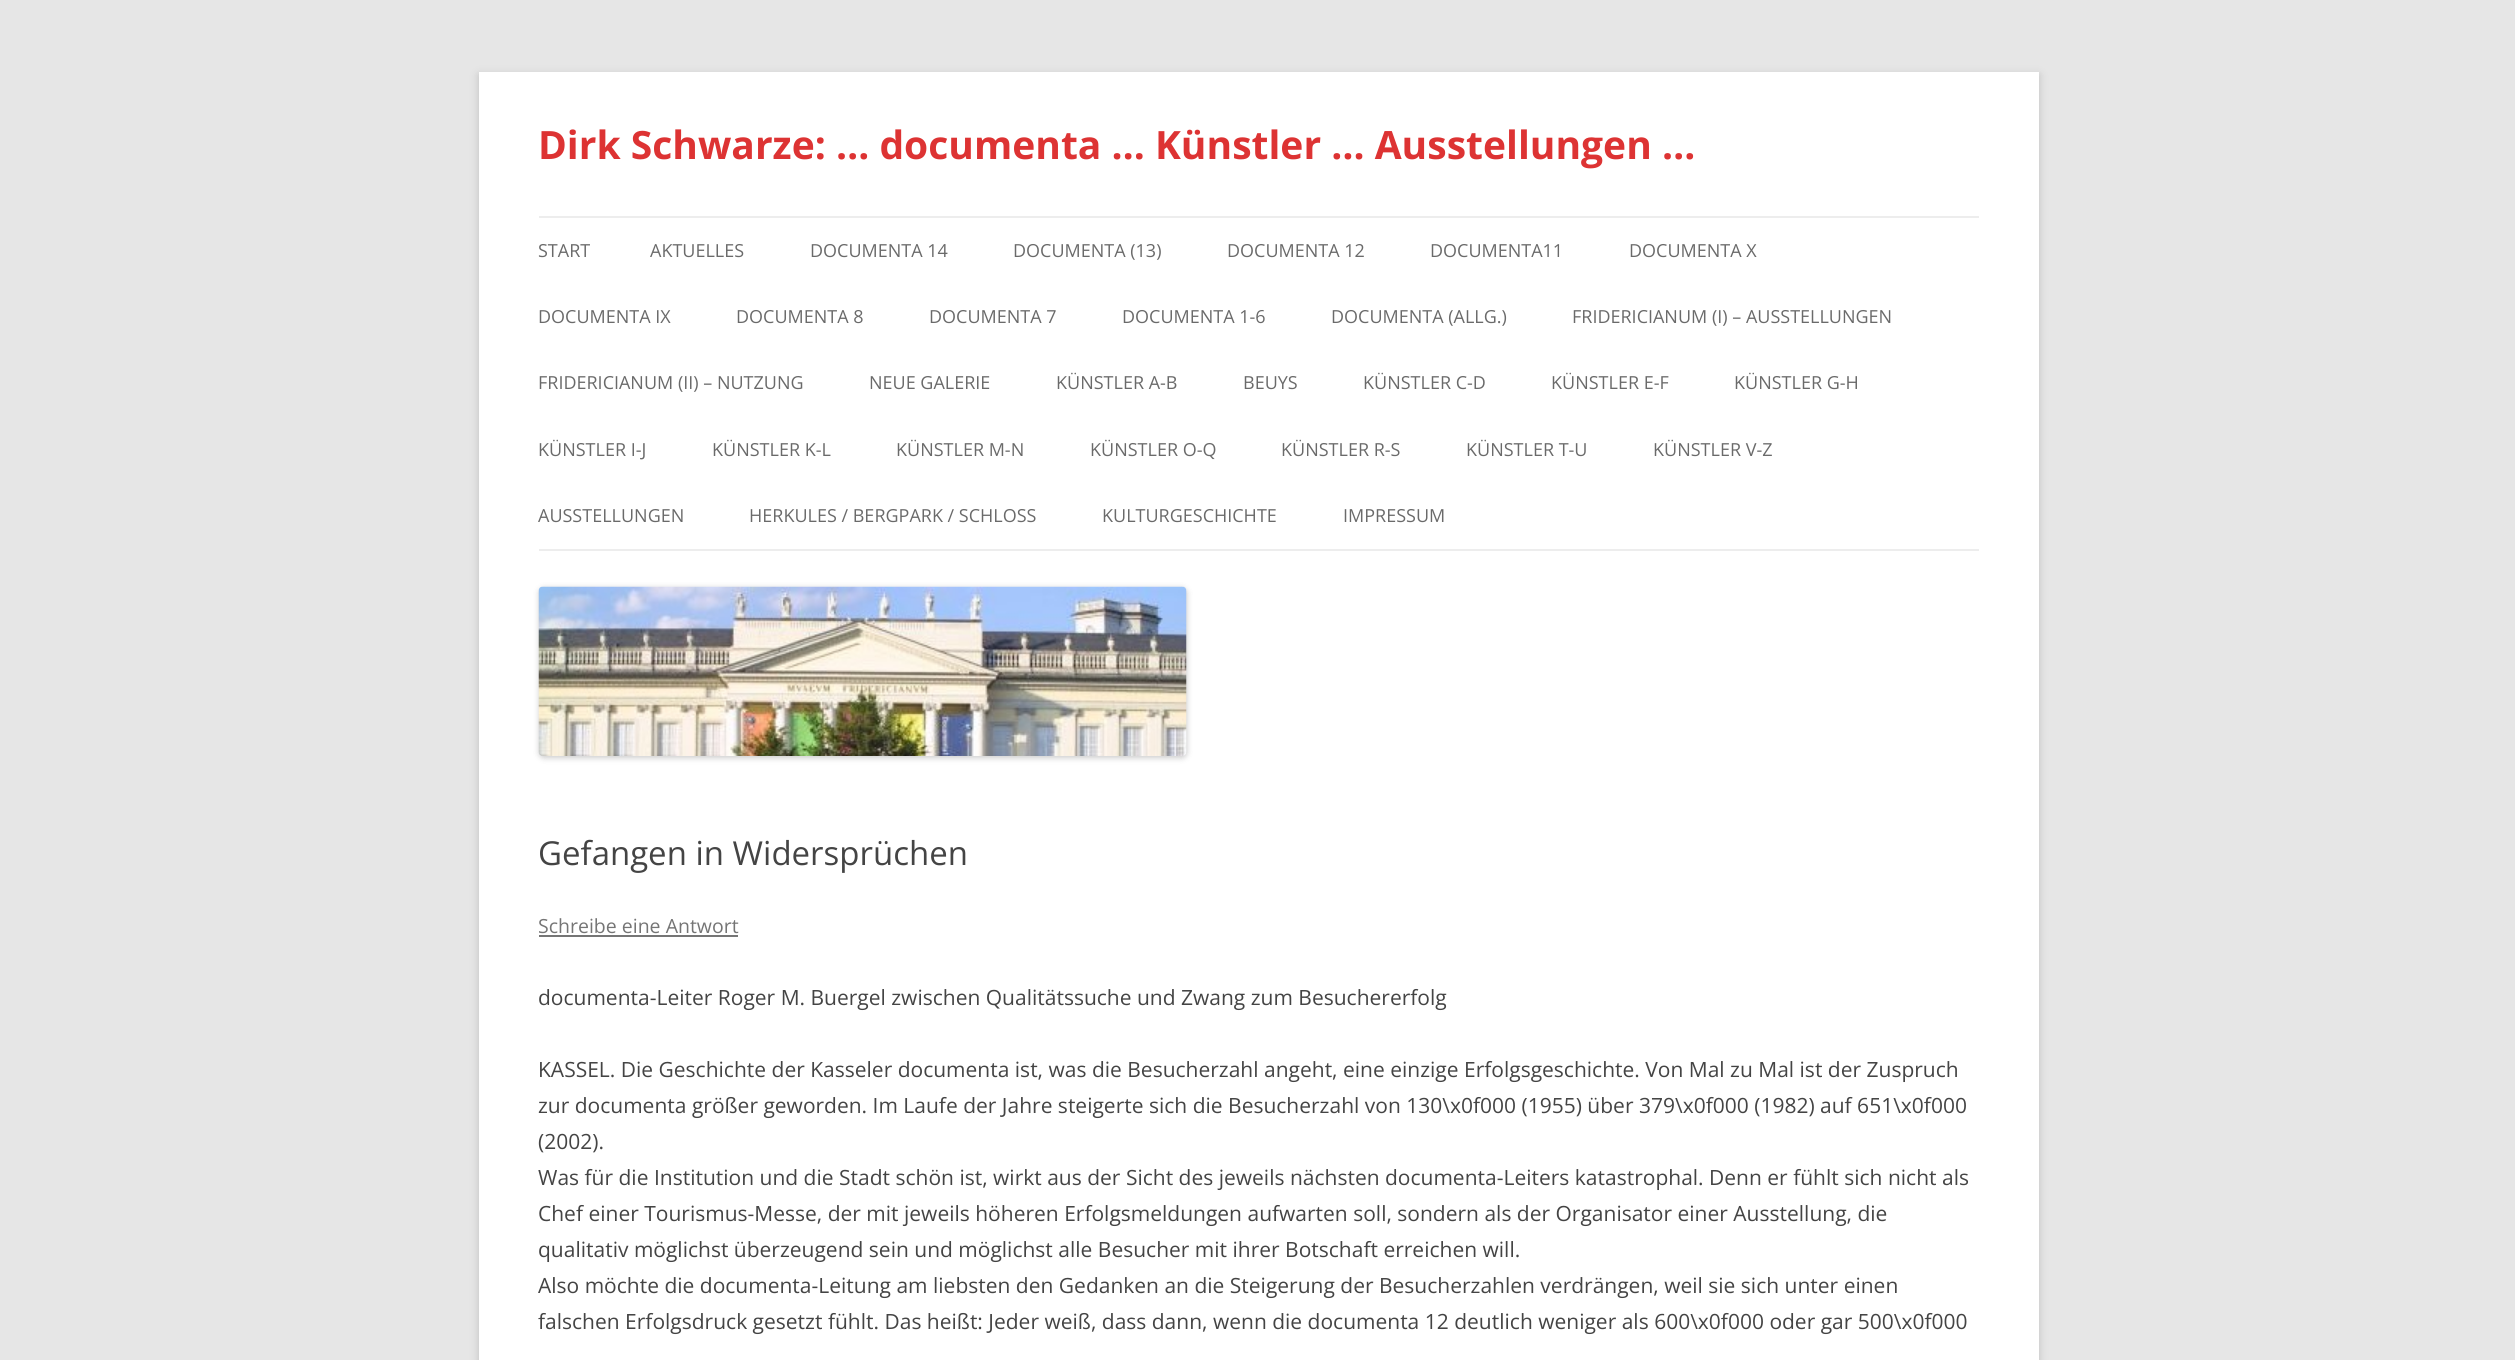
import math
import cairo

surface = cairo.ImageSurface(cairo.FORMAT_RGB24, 2515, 1360)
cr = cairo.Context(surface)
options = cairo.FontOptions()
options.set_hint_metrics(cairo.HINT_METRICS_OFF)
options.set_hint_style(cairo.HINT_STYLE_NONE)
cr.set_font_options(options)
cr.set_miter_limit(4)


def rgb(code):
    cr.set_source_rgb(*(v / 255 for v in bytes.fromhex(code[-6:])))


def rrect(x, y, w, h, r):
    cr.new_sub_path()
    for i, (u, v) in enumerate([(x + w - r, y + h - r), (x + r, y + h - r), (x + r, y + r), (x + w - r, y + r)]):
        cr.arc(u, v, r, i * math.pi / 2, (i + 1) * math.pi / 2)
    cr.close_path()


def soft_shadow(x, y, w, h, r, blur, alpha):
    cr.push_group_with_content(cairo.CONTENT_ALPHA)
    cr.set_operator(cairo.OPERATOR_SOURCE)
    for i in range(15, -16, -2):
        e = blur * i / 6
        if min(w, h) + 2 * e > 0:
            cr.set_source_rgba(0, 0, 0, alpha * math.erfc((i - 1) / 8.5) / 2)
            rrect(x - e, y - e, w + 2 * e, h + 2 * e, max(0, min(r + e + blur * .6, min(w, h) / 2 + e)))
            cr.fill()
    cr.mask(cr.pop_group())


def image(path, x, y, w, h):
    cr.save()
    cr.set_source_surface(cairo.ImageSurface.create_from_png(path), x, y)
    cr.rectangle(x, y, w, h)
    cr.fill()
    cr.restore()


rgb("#e6e6e6")
cr.paint()
rgb("#646464")
soft_shadow(479, 75, 1560, 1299, 0, 4.5, 0.3)
for x, y, w, h, color in [
    (479, 72, 1560, 1288, "#ffffff"),
    (539, 216, 1440, 2, "#ededed"),
    (539, 549, 1440, 2, "#ededed"),
]:
    rgb(color)
    cr.rectangle(x, y, w, h)
    cr.fill()
rgb("#000000")
soft_shadow(539, 588, 648, 170, 5, 3, 0.2)
image("img/1.png", 538, 586, 649, 170)
rgb("#757575")
cr.rectangle(539, 935, 199, 2)
cr.fill()
cr.select_font_face("Open Sans", cairo.FONT_SLANT_NORMAL, cairo.FONT_WEIGHT_BOLD)
cr.set_font_size(39)
rgb("#dd3333")
cr.move_to(538, 159)
cr.show_text("Dirk Schwarze: … documenta … Künstler … Ausstellungen …")
cr.select_font_face("Open Sans")
cr.set_font_size(18)
rgb("#6a6a6a")
for x, y, s in [
    (538, 257, "START"),
    (650, 257, "AKTUELLES"),
    (810, 257, "DOCUMENTA 14"),
    (1013, 257, "DOCUMENTA (13)"),
    (1227, 257, "DOCUMENTA 12"),
    (1430, 257, "DOCUMENTA11"),
    (1629, 257, "DOCUMENTA X"),
    (538, 323, "DOCUMENTA IX"),
    (736, 323, "DOCUMENTA 8"),
    (929, 323, "DOCUMENTA 7"),
    (1122, 323, "DOCUMENTA 1-6"),
    (1331, 323, "DOCUMENTA (ALLG.)"),
    (1572, 323, "FRIDERICIANUM (I) – AUSSTELLUNGEN"),
    (538, 389, "FRIDERICIANUM (II) – NUTZUNG"),
    (869, 389, "NEUE GALERIE"),
    (1056, 389, "KÜNSTLER A-B"),
    (1243, 389, "BEUYS"),
    (1363, 389, "KÜNSTLER C-D"),
    (1551, 389, "KÜNSTLER E-F"),
    (1734, 389, "KÜNSTLER G-H"),
    (538, 456, "KÜNSTLER I-J"),
    (712, 456, "KÜNSTLER K-L"),
    (896, 456, "KÜNSTLER M-N"),
    (1090, 456, "KÜNSTLER O-Q"),
    (1281, 456, "KÜNSTLER R-S"),
    (1466, 456, "KÜNSTLER T-U"),
    (1653, 456, "KÜNSTLER V-Z"),
    (538, 522, "AUSSTELLUNGEN"),
    (749, 522, "HERKULES / BERGPARK / SCHLOSS"),
    (1102, 522, "KULTURGESCHICHTE"),
    (1343, 522, "IMPRESSUM"),
]:
    cr.move_to(x, y)
    cr.show_text(s)
cr.set_font_size(33)
rgb("#444444")
cr.move_to(538, 865)
cr.show_text("Gefangen in Widersprüchen")
cr.set_font_size(19.5)
rgb("#757575")
cr.move_to(538, 933)
cr.show_text("Schreibe eine Antwort")
cr.set_font_size(21)
rgb("#444444")
for x, y, s in [
    (538, 1005, "documenta-Leiter Roger M. Buergel zwischen Qualitätssuche und Zwang zum Besuchererfolg"),
    (538, 1077, "KASSEL. Die Geschichte der Kasseler documenta ist, was die Besucherzahl angeht, eine einzige Erfolgsgeschichte. Von Mal zu Mal ist der Zuspruch"),
    (538, 1113, "zur documenta größer geworden. Im Laufe der Jahre steigerte sich die Besucherzahl von 130\\x0f000 (1955) über 379\\x0f000 (1982) auf 651\\x0f000"),
    (538, 1149, "(2002)."),
    (538, 1185, "Was für die Institution und die Stadt schön ist, wirkt aus der Sicht des jeweils nächsten documenta-Leiters katastrophal. Denn er fühlt sich nicht als"),
    (538, 1221, "Chef einer Tourismus-Messe, der mit jeweils höheren Erfolgsmeldungen aufwarten soll, sondern als der Organisator einer Ausstellung, die"),
    (538, 1257, "qualitativ möglichst überzeugend sein und möglichst alle Besucher mit ihrer Botschaft erreichen will."),
    (538, 1293, "Also möchte die documenta-Leitung am liebsten den Gedanken an die Steigerung der Besucherzahlen verdrängen, weil sie sich unter einen"),
    (538, 1329, "falschen Erfolgsdruck gesetzt fühlt. Das heißt: Jeder weiß, dass dann, wenn die documenta 12 deutlich weniger als 600\\x0f000 oder gar 500\\x0f000"),
]:
    cr.move_to(x, y)
    cr.show_text(s)
surface.write_to_png("page.png")
